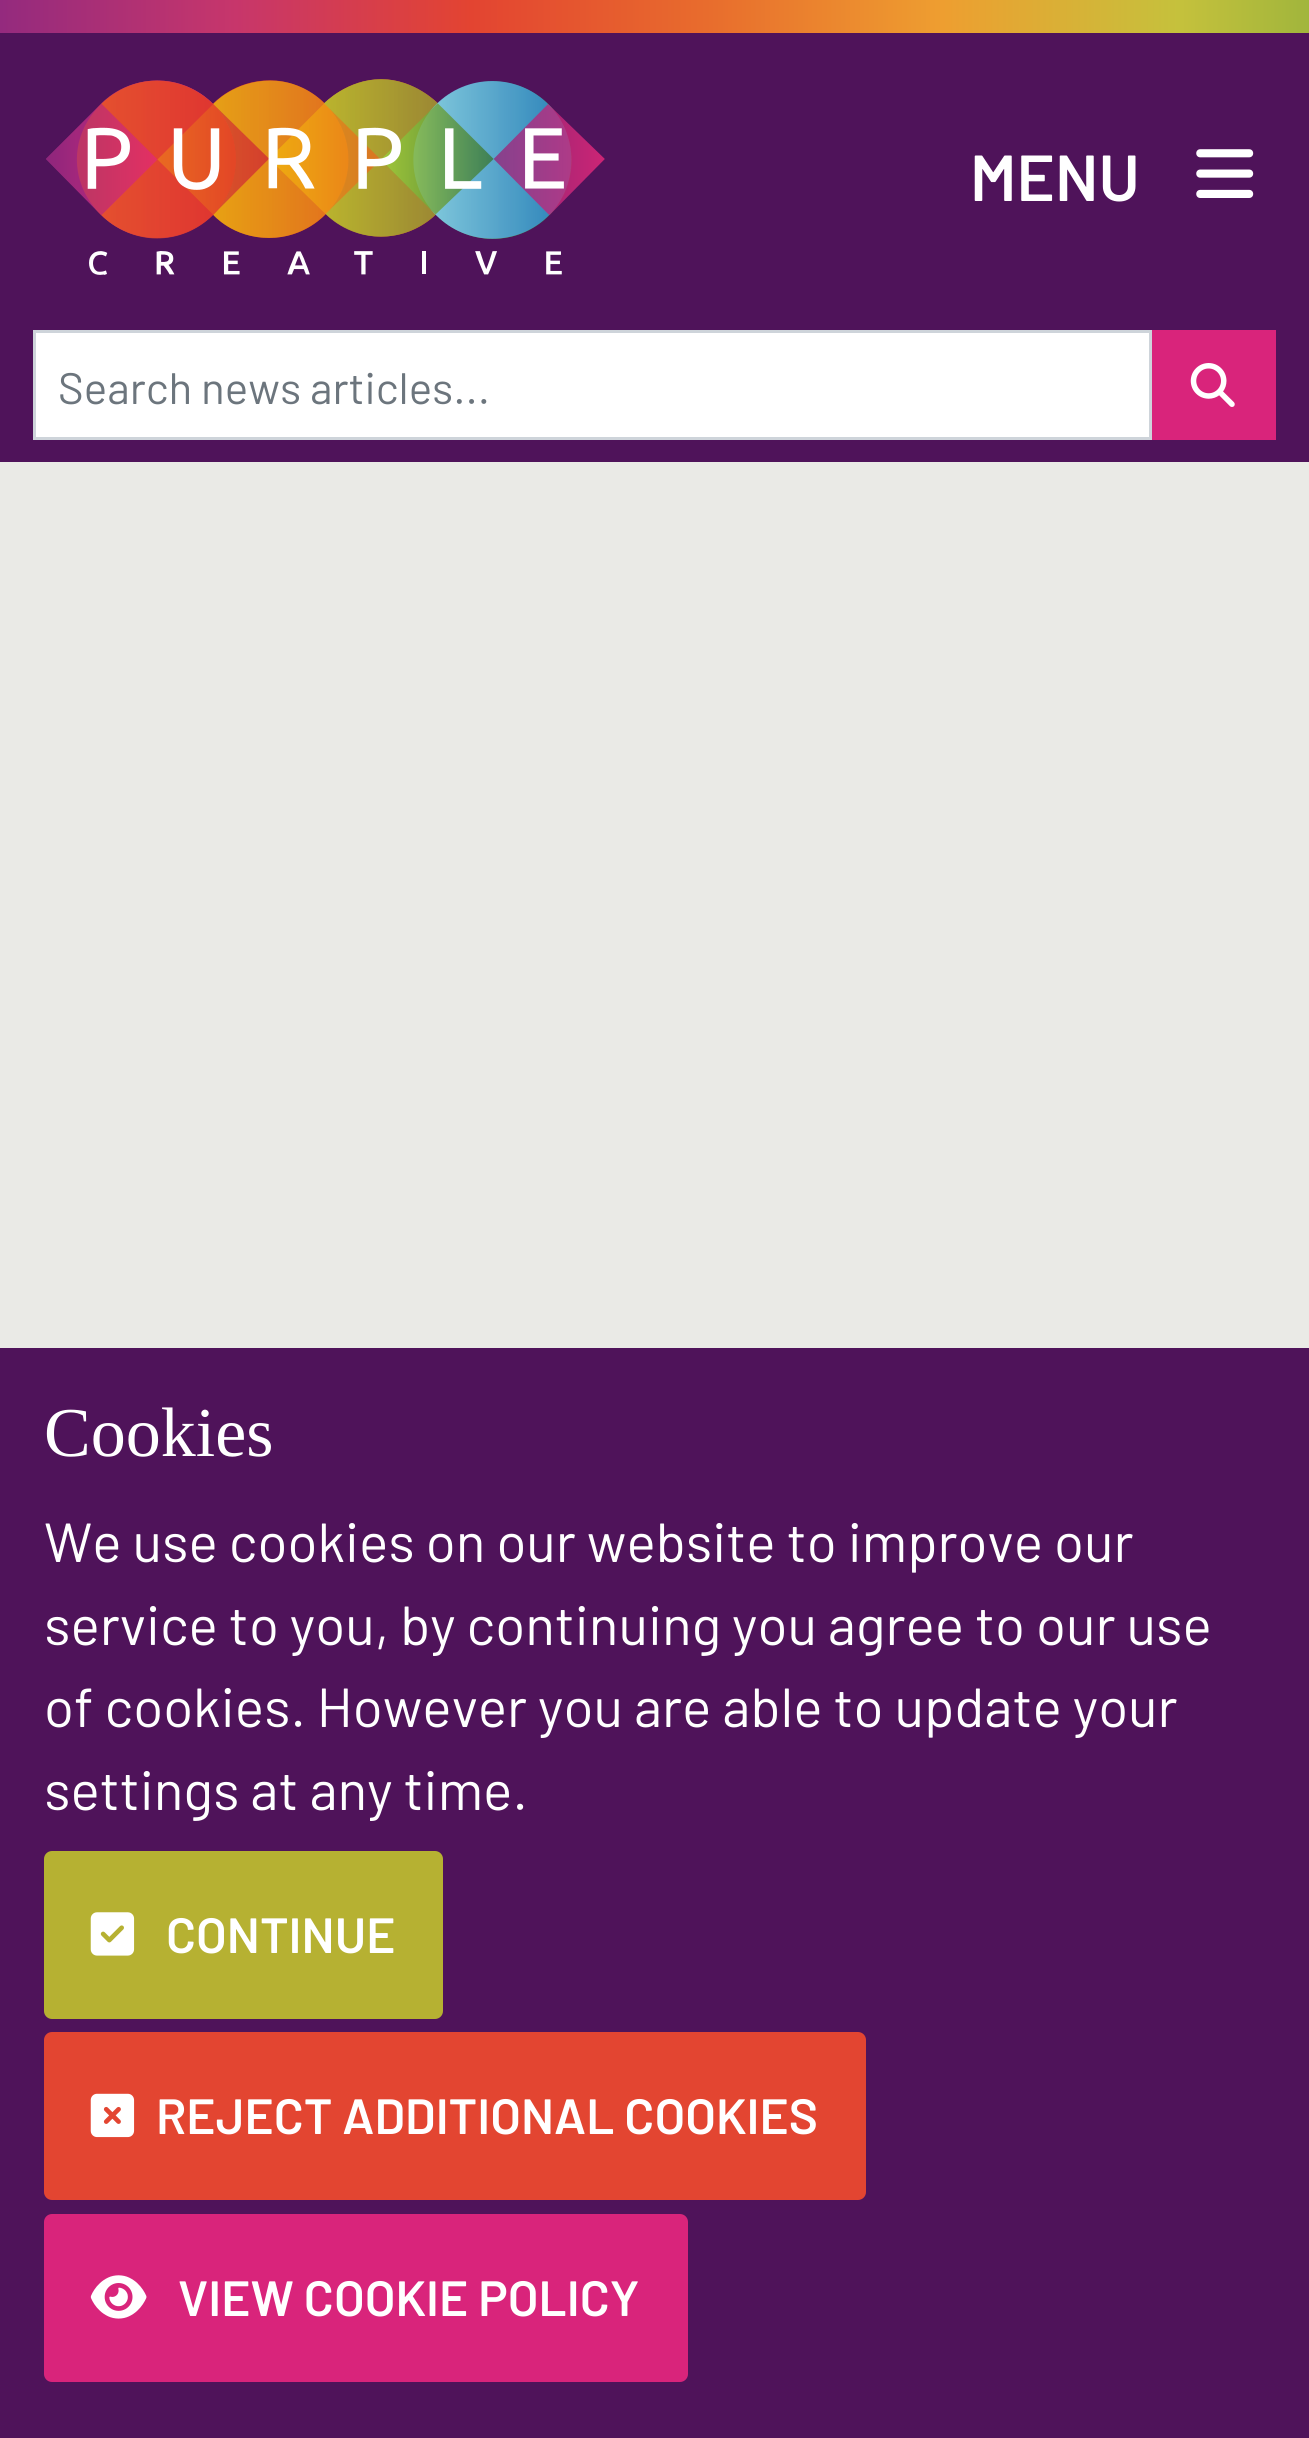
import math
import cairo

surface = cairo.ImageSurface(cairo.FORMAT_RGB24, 1309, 2438)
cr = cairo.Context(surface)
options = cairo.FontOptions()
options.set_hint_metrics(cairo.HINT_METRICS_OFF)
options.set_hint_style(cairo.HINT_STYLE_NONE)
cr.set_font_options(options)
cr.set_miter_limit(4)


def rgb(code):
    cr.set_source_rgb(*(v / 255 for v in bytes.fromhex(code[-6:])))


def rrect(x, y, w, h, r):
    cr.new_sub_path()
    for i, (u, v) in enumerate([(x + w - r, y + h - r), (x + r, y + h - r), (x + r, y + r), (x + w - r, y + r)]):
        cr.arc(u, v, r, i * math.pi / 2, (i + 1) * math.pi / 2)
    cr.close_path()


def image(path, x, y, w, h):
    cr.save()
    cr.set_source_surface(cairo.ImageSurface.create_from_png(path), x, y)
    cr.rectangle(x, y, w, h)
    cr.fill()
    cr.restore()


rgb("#4f135a")
cr.paint()
gradient = cairo.LinearGradient(0, 33, 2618, 33)
gradient.add_color_stop_rgba(0, 0.58, 0.165, 0.494, 1)
gradient.add_color_stop_rgba(0.09, 0.78, 0.212, 0.42, 1)
gradient.add_color_stop_rgba(0.18, 0.89, 0.267, 0.192, 1)
gradient.add_color_stop_rgba(0.27, 0.91, 0.424, 0.176, 1)
gradient.add_color_stop_rgba(0.36, 0.933, 0.62, 0.188, 1)
gradient.add_color_stop_rgba(0.45, 0.773, 0.757, 0.235, 1)
gradient.add_color_stop_rgba(0.54, 0.518, 0.675, 0.235, 1)
gradient.add_color_stop_rgba(0.63, 0.322, 0.549, 0.439, 1)
gradient.add_color_stop_rgba(0.72, 0.349, 0.6, 0.733, 1)
gradient.add_color_stop_rgba(0.81, 0.561, 0.29, 0.541, 1)
gradient.add_color_stop_rgba(0.9, 0.843, 0.145, 0.49, 1)
gradient.add_color_stop_rgba(1, 0.58, 0.165, 0.494, 1)
cr.set_source(gradient)
cr.rectangle(0, 0, 1309, 33)
cr.fill()
image("img/1.png", 46, 79, 559, 196)
image("img/2.png", 1196, 149, 58, 49)
rgb("#ffffff")
cr.rectangle(34.5, 331.5, 1116, 107)
cr.fill_preserve()
rgb("#ced4da")
cr.set_line_width(3)
cr.stroke()
rgb("#d9247b")
cr.rectangle(1152, 330, 124, 110)
cr.fill()
image("img/3.png", 1190, 363, 45, 44)
rgb("#eaeae6")
cr.rectangle(0, 462, 1309, 886)
cr.fill()
rgb("#b6b132")
rrect(45.5, 1852.5, 396, 165, 6.5)
cr.fill_preserve()
cr.stroke()
image("img/4.png", 90, 1912, 45, 44)
rgb("#e34531")
rrect(45.5, 2033.5, 819, 165, 6.5)
cr.fill_preserve()
cr.stroke()
image("img/5.png", 90, 2093, 45, 45)
rgb("#d9247b")
rrect(45.5, 2215.5, 641, 165, 6.5)
cr.fill_preserve()
cr.stroke()
image("img/6.png", 90, 2275, 57, 44)
cr.select_font_face("Barlow SemiBold")
cr.set_font_size(65)
rgb("#ffffff")
cr.move_to(970, 201)
cr.show_text("MENU")
cr.select_font_face("Barlow")
cr.set_font_size(44)
rgb("#6c757d")
cr.move_to(58, 404)
cr.show_text("Search news articles...")
cr.select_font_face("Liberation Serif")
cr.set_font_size(70)
rgb("#ffffff")
cr.move_to(44, 1456)
cr.show_text("Cookies")
cr.select_font_face("Barlow")
cr.set_font_size(55)
for x, y, s in [
    (44, 1562, "We use cookies on our website to improve our"),
    (44, 1645, "service to you, by continuing you agree to our use"),
    (44, 1727, "of cookies. However you are able to update your"),
    (44, 1810, "settings at any time."),
]:
    cr.move_to(x, y)
    cr.show_text(s)
cr.select_font_face("Barlow SemiBold")
cr.set_font_size(49.5)
for x, y, s in [
    (166, 1953, "CONTINUE"),
    (156, 2134, "REJECT ADDITIONAL COOKIES"),
    (178, 2316, "VIEW COOKIE POLICY"),
]:
    cr.move_to(x, y)
    cr.show_text(s)
surface.write_to_png("page.png")
